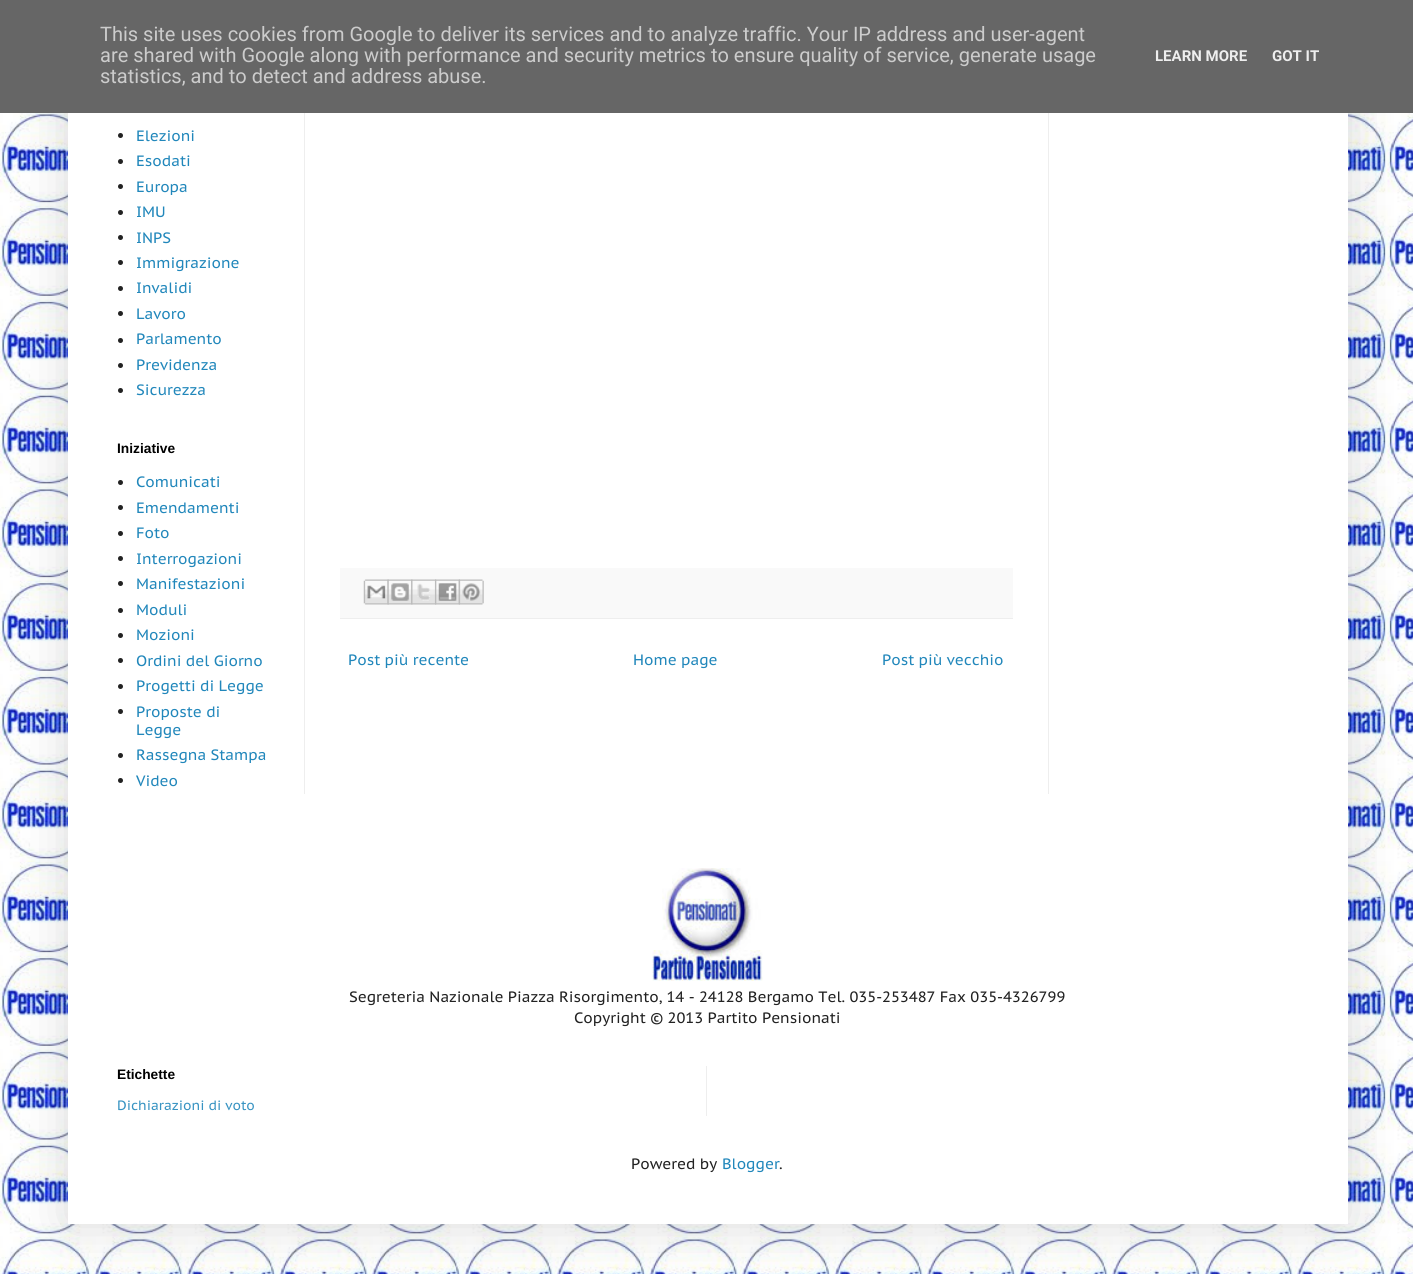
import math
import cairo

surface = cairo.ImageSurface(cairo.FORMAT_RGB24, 1413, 1274)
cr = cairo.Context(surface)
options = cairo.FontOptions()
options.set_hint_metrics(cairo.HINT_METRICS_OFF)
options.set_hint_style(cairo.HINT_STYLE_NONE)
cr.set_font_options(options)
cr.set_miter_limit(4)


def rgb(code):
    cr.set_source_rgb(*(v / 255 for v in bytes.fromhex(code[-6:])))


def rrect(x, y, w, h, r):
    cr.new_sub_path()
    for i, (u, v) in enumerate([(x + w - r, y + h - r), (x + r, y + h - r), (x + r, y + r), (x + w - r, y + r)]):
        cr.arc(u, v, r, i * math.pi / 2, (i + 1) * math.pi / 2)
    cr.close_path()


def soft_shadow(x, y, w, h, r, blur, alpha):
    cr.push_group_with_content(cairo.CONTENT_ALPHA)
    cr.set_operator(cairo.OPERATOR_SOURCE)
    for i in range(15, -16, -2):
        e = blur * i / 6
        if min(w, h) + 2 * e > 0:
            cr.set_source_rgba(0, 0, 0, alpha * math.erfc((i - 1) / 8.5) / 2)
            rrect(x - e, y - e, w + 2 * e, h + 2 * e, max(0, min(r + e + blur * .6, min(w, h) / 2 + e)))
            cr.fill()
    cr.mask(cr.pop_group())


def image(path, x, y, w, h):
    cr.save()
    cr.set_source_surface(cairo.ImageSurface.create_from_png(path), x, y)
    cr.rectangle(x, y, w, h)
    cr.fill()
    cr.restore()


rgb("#ffffff")
cr.paint()
image("img/1.png", 0, 113, 1413, 1161)
rgb("#000000")
soft_shadow(68, -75, 1280, 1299, 0, 25, 0.15)
for x, y, w, h, color in [
    (0, 0, 1413, 113, "#666666"),
    (68, 113, 1280, 1111, "#ffffff"),
    (304, 113, 1, 681, "#eeeeee"),
    (1048, 113, 1, 681, "#eeeeee"),
]:
    rgb(color)
    cr.rectangle(x, y, w, h)
    cr.fill()
rgb("#222222")
cr.arc(120.5, 135.5, 2.5, 0, 2 * math.pi)
cr.fill()
cr.arc(120.5, 161.5, 2.5, 0, 2 * math.pi)
cr.fill()
cr.arc(120.5, 186.5, 2.5, 0, 2 * math.pi)
cr.fill()
cr.arc(120.5, 212.5, 2.5, 0, 2 * math.pi)
cr.fill()
cr.arc(120.5, 237.5, 2.5, 0, 2 * math.pi)
cr.fill()
cr.arc(120.5, 262.5, 2.5, 0, 2 * math.pi)
cr.fill()
cr.arc(120.5, 288.5, 2.5, 0, 2 * math.pi)
cr.fill()
cr.arc(120.5, 313.5, 2.5, 0, 2 * math.pi)
cr.fill()
cr.arc(120.5, 340.5, 2.5, 0, 2 * math.pi)
cr.fill()
cr.arc(120.5, 365.5, 2.5, 0, 2 * math.pi)
cr.fill()
cr.arc(120.5, 390.5, 2.5, 0, 2 * math.pi)
cr.fill()
cr.arc(120.5, 482.5, 2.5, 0, 2 * math.pi)
cr.fill()
cr.arc(120.5, 507.5, 2.5, 0, 2 * math.pi)
cr.fill()
cr.arc(120.5, 533.5, 2.5, 0, 2 * math.pi)
cr.fill()
cr.arc(120.5, 558.5, 2.5, 0, 2 * math.pi)
cr.fill()
cr.arc(120.5, 583.5, 2.5, 0, 2 * math.pi)
cr.fill()
cr.arc(120.5, 610.5, 2.5, 0, 2 * math.pi)
cr.fill()
cr.arc(120.5, 635.5, 2.5, 0, 2 * math.pi)
cr.fill()
cr.arc(120.5, 660.5, 2.5, 0, 2 * math.pi)
cr.fill()
cr.arc(120.5, 686.5, 2.5, 0, 2 * math.pi)
cr.fill()
cr.arc(120.5, 711.5, 2.5, 0, 2 * math.pi)
cr.fill()
cr.arc(120.5, 755.5, 2.5, 0, 2 * math.pi)
cr.fill()
cr.arc(120.5, 780.5, 2.5, 0, 2 * math.pi)
cr.fill()
rgb("#f9f9f9")
cr.rectangle(340, 568, 673, 50)
cr.fill()
rgb("#eeeeee")
cr.rectangle(340, 618, 673, 1)
cr.fill()
image("img/2.png", 363, 579, 26, 26)
image("img/3.png", 387, 579, 26, 26)
image("img/4.png", 411, 579, 26, 26)
image("img/5.png", 435, 579, 25, 26)
image("img/6.png", 458, 579, 26, 26)
image("img/7.png", 652, 868, 111, 113)
cr.rectangle(706, 1066, 1, 50)
cr.fill()
cr.select_font_face("Roboto")
cr.set_font_size(20)
rgb("#cccccc")
for x, y, s in [
    (100, 41, "This site uses cookies from Google to deliver its services and to analyze traffic. Your IP address and user-agent"),
    (100, 62, "are shared with Google along with performance and security metrics to ensure quality of service, generate usage"),
    (100, 83, "statistics, and to detect and address abuse."),
]:
    cr.move_to(x, y)
    cr.show_text(s)
cr.select_font_face("Roboto", cairo.FONT_SLANT_NORMAL, cairo.FONT_WEIGHT_BOLD)
cr.set_font_size(15)
rgb("#eeeeee")
cr.move_to(1155, 61)
cr.show_text("LEARN MORE")
cr.move_to(1272, 61)
cr.show_text("GOT IT")
cr.select_font_face("PT Sans Caption")
rgb("#2187bb")
for x, y, s in [
    (136, 141, "Elezioni"),
    (136, 166, "Esodati"),
    (136, 192, "Europa"),
    (136, 217, "IMU"),
    (136, 243, "INPS"),
    (136, 268, "Immigrazione"),
    (136, 293, "Invalidi"),
    (136, 319, "Lavoro"),
    (136, 344, "Parlamento"),
    (136, 370, "Previdenza"),
    (136, 395, "Sicurezza"),
]:
    cr.move_to(x, y)
    cr.show_text(s)
cr.select_font_face("Liberation Sans", cairo.FONT_SLANT_NORMAL, cairo.FONT_WEIGHT_BOLD)
cr.set_font_size(13.75)
rgb("#000000")
cr.move_to(117, 453)
cr.show_text("Iniziative")
cr.select_font_face("PT Sans Caption")
cr.set_font_size(15)
rgb("#2187bb")
for x, y, s in [
    (136, 487, "Comunicati"),
    (136, 513, "Emendamenti"),
    (136, 538, "Foto"),
    (136, 564, "Interrogazioni"),
    (136, 589, "Manifestazioni"),
    (136, 615, "Moduli"),
    (136, 640, "Mozioni"),
    (136, 666, "Ordini del Giorno"),
    (136, 691, "Progetti di Legge"),
    (136, 717, "Proposte di"),
    (136, 735, "Legge"),
    (136, 760, "Rassegna Stampa"),
    (136, 786, "Video"),
    (348, 665, "Post più recente"),
    (633, 665, "Home page"),
    (882, 665, "Post più vecchio"),
]:
    cr.move_to(x, y)
    cr.show_text(s)
rgb("#222222")
cr.move_to(349, 1002)
cr.show_text("Segreteria Nazionale Piazza Risorgimento, 14 - 24128 Bergamo Tel. 035-253487 Fax 035-4326799")
cr.move_to(574, 1023)
cr.show_text("Copyright © 2013 Partito Pensionati")
cr.select_font_face("Liberation Sans", cairo.FONT_SLANT_NORMAL, cairo.FONT_WEIGHT_BOLD)
cr.set_font_size(13.75)
rgb("#000000")
cr.move_to(117, 1079)
cr.show_text("Etichette")
cr.select_font_face("PT Sans Caption")
cr.set_font_size(13.5)
rgb("#3793c2")
cr.move_to(117, 1110)
cr.show_text("Dichiarazioni di voto")
cr.set_font_size(15)
rgb("#222222")
cr.move_to(631, 1169)
cr.show_text("Powered by")
rgb("#2187bb")
cr.move_to(722, 1169)
cr.show_text("Blogger")
rgb("#222222")
cr.move_to(779, 1169)
cr.show_text(".")
surface.write_to_png("page.png")
